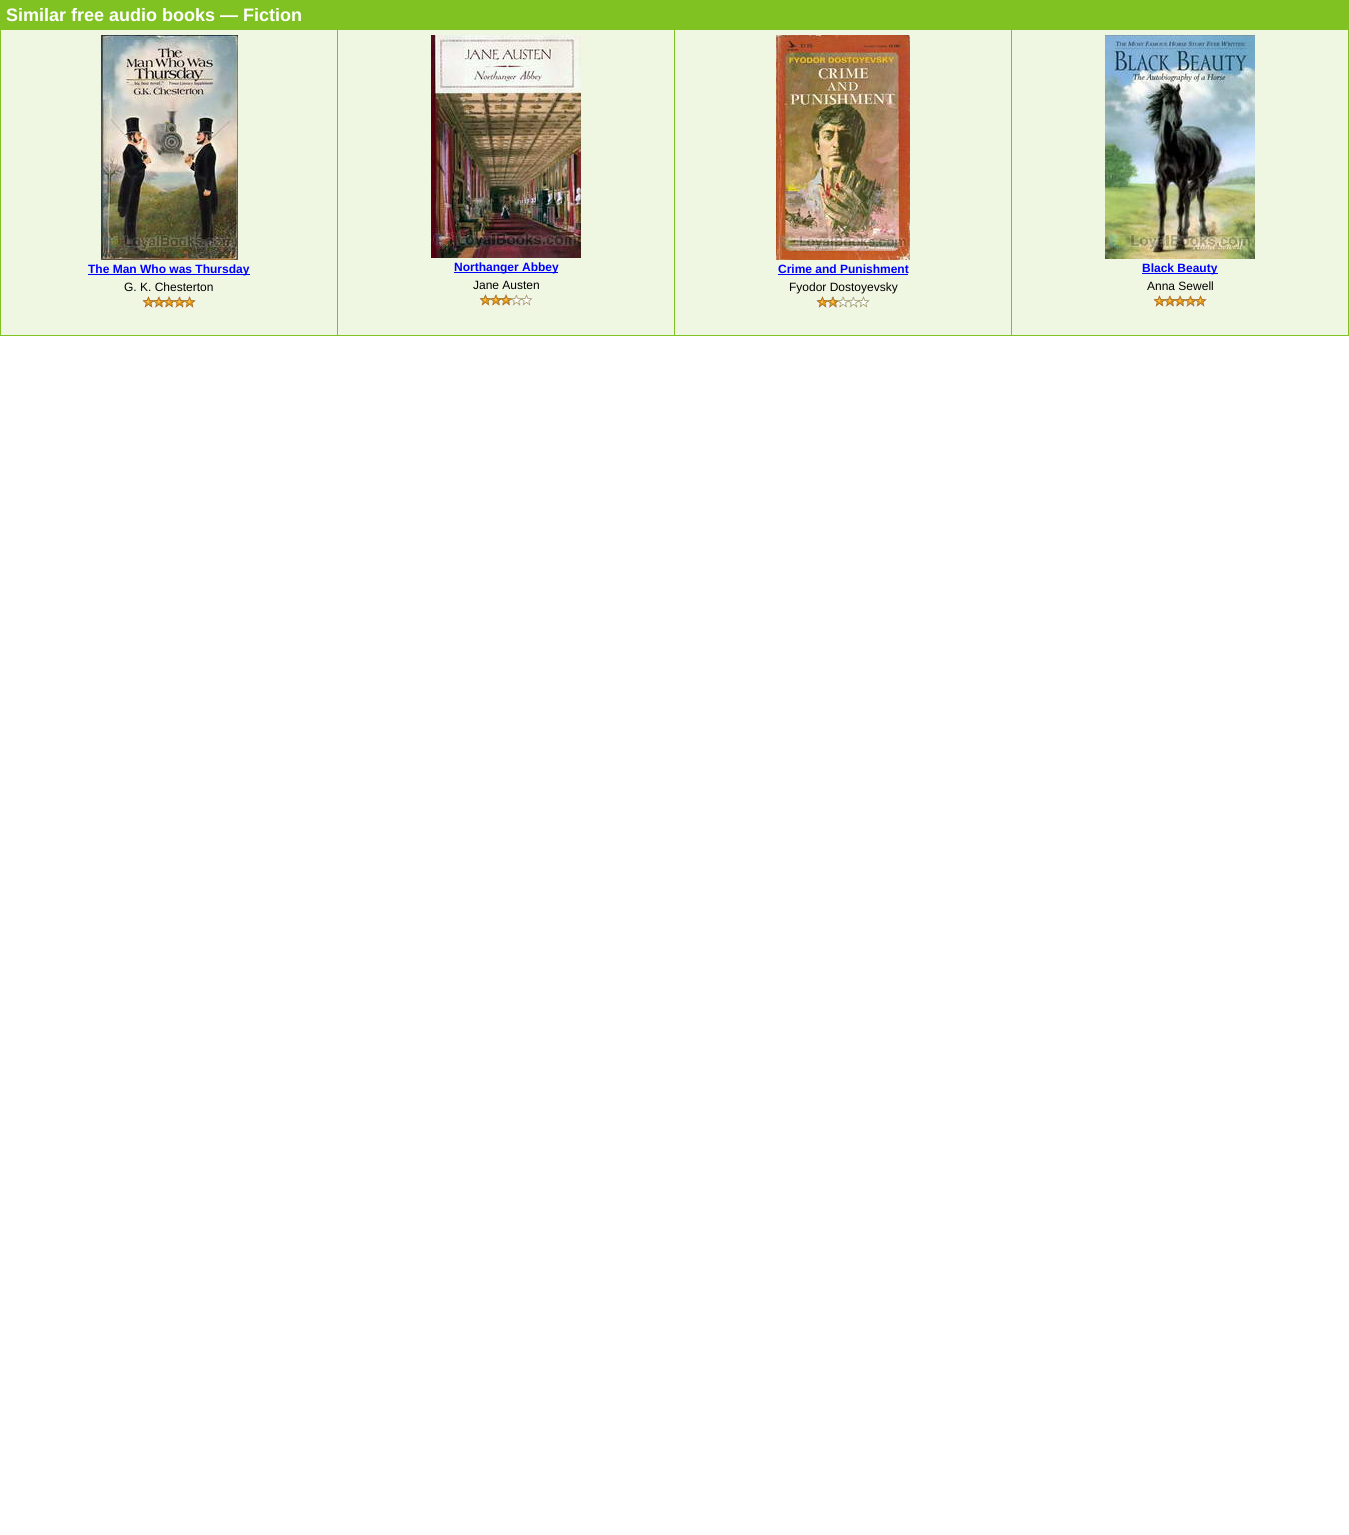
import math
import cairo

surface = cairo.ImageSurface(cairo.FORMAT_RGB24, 1349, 1535)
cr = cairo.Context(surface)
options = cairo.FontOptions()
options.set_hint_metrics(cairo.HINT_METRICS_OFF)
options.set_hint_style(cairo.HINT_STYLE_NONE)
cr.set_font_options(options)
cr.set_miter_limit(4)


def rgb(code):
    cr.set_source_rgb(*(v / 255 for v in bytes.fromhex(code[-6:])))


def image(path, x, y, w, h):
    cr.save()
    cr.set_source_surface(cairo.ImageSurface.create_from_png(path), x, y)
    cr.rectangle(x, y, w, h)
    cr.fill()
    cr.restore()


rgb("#ffffff")
cr.paint()
for x, y, w, h, color in [
    (1, 30, 1347, 305, "#eff6e2"),
    (0, 0, 1349, 1, "#80c222"),
    (1348, 0, 1, 336, "#80c222"),
    (0, 335, 1349, 1, "#80c222"),
    (0, 0, 1, 336, "#80c222"),
    (1, 1, 1347, 29, "#80c222"),
]:
    rgb(color)
    cr.rectangle(x, y, w, h)
    cr.fill()
image("img/1.png", 101, 35, 137, 225)
rgb("#0000ff")
cr.rectangle(88, 274, 162, 1)
cr.fill()
image("img/2.png", 141, 296, 56, 12)
rgb("#80c222")
cr.rectangle(337, 29, 1, 307)
cr.fill()
image("img/3.png", 431, 35, 150, 223)
rgb("#0000ff")
cr.rectangle(454, 272, 104, 1)
cr.fill()
image("img/4.png", 478, 294, 56, 12)
rgb("#80c222")
cr.rectangle(674, 29, 1, 307)
cr.fill()
image("img/5.png", 776, 35, 134, 225)
rgb("#0000ff")
cr.rectangle(778, 274, 130, 1)
cr.fill()
image("img/6.png", 815, 296, 56, 12)
rgb("#80c222")
cr.rectangle(1011, 29, 1, 307)
cr.fill()
image("img/7.png", 1105, 35, 150, 224)
rgb("#0000ff")
cr.rectangle(1142, 273, 76, 1)
cr.fill()
image("img/2.png", 1152, 295, 56, 12)
cr.select_font_face("Liberation Sans", cairo.FONT_SLANT_NORMAL, cairo.FONT_WEIGHT_BOLD)
cr.set_font_size(18)
rgb("#ffffff")
cr.move_to(6, 21)
cr.show_text("Similar free audio books — Fiction")
cr.set_font_size(12)
rgb("#0000ff")
cr.move_to(88, 273)
cr.show_text("The Man Who was Thursday")
cr.select_font_face("Liberation Sans")
rgb("#000000")
cr.move_to(124, 291)
cr.show_text("G. K. Chesterton")
cr.select_font_face("Liberation Sans", cairo.FONT_SLANT_NORMAL, cairo.FONT_WEIGHT_BOLD)
rgb("#0000ff")
cr.move_to(454, 271)
cr.show_text("Northanger Abbey")
cr.select_font_face("Liberation Sans")
rgb("#000000")
cr.move_to(473, 289)
cr.show_text("Jane Austen")
cr.select_font_face("Liberation Sans", cairo.FONT_SLANT_NORMAL, cairo.FONT_WEIGHT_BOLD)
rgb("#0000ff")
cr.move_to(778, 273)
cr.show_text("Crime and Punishment")
cr.select_font_face("Liberation Sans")
rgb("#000000")
cr.move_to(789, 291)
cr.show_text("Fyodor Dostoyevsky")
cr.select_font_face("Liberation Sans", cairo.FONT_SLANT_NORMAL, cairo.FONT_WEIGHT_BOLD)
rgb("#0000ff")
cr.move_to(1142, 272)
cr.show_text("Black Beauty")
cr.select_font_face("Liberation Sans")
rgb("#000000")
cr.move_to(1147, 290)
cr.show_text("Anna Sewell")
surface.write_to_png("page.png")
